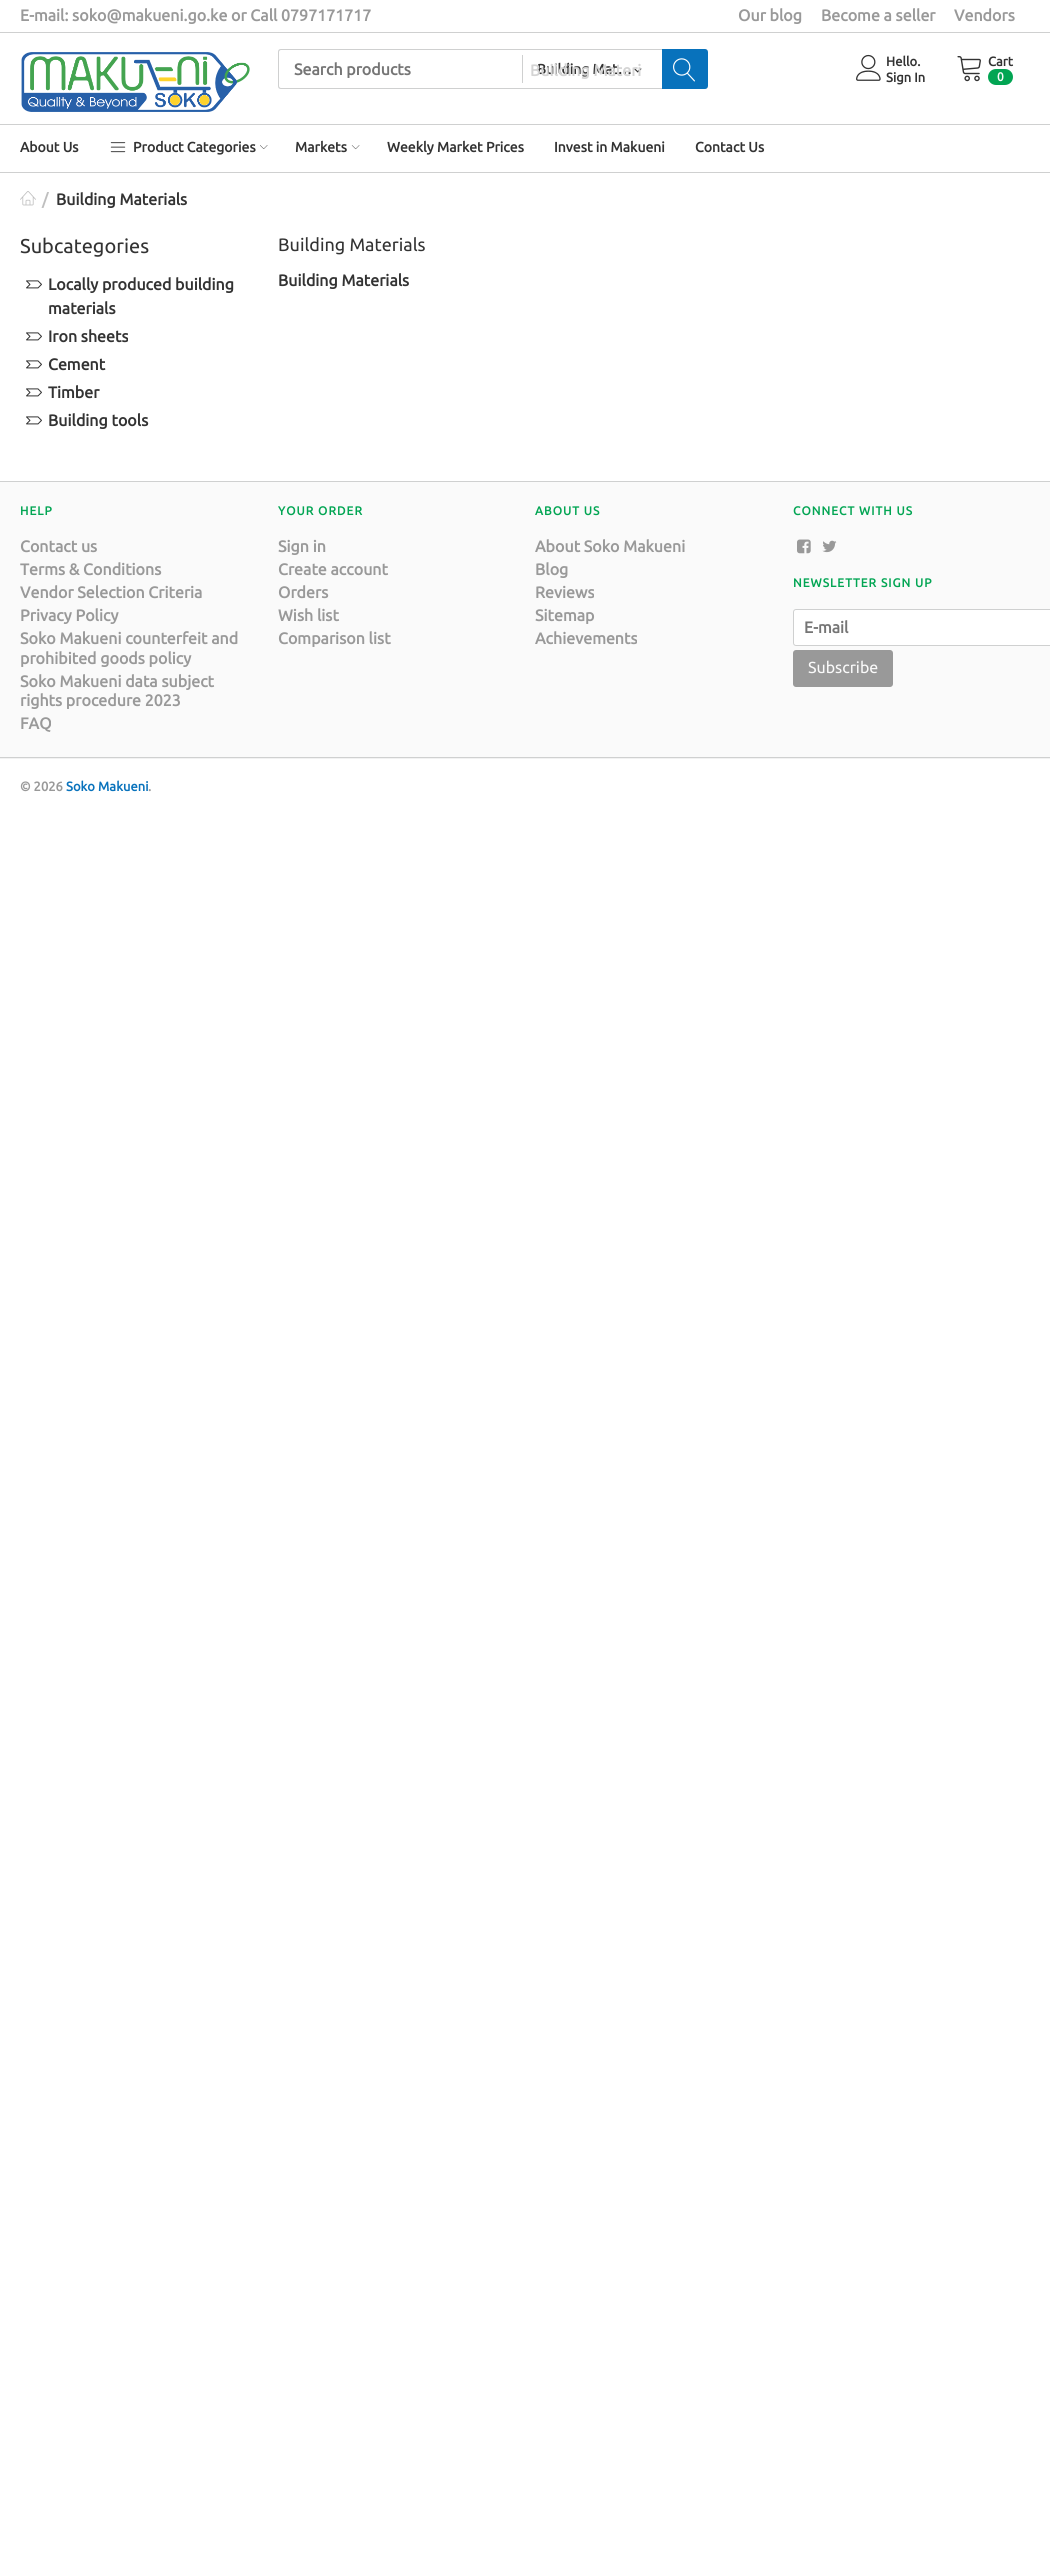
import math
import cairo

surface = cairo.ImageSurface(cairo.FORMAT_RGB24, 1050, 2568)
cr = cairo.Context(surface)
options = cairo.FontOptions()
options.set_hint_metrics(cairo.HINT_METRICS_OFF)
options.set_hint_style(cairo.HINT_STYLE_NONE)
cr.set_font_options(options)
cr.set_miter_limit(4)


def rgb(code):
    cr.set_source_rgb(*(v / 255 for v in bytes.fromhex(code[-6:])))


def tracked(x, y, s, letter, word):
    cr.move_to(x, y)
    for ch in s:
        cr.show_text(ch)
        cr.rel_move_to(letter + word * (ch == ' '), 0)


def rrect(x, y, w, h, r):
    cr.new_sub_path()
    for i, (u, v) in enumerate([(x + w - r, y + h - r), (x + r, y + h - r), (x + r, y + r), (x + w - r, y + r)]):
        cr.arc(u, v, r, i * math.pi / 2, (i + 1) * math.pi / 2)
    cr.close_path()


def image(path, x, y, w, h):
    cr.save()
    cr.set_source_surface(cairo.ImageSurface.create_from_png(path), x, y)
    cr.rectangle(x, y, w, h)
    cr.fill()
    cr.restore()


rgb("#ffffff")
cr.paint()
rgb("#cfd0d0")
cr.rectangle(0, 32, 1050, 1)
cr.fill()
cr.rectangle(0, 172, 1050, 1)
cr.fill()
image("img/1.png", 21, 52, 229, 60)
cr.set_fill_rule(cairo.FILL_RULE_EVEN_ODD)
cr.new_path()
cr.move_to(281, 49)
cr.line_to(705, 49)
cr.curve_to(707, 49, 708, 50, 708, 52)
cr.line_to(708, 86)
cr.curve_to(708, 88, 707, 89, 705, 89)
cr.line_to(281, 89)
cr.curve_to(279, 89, 278, 88, 278, 86)
cr.line_to(278, 52)
cr.curve_to(278, 50, 279, 49, 281, 49)
cr.close_path()
cr.move_to(281, 50)
cr.line_to(705, 50)
cr.curve_to(707, 50, 708, 51, 708, 52)
cr.line_to(708, 86)
cr.curve_to(708, 87, 707, 88, 705, 88)
cr.line_to(281, 88)
cr.curve_to(280, 88, 279, 87, 279, 86)
cr.line_to(279, 52)
cr.curve_to(279, 51, 280, 50, 281, 50)
cr.close_path()
cr.fill()
rgb("#0872bc")
cr.new_path()
cr.move_to(662, 49)
cr.line_to(705, 49)
cr.curve_to(706.5, 49, 708, 50.5, 708, 52)
cr.line_to(708, 86)
cr.curve_to(708, 87.5, 706.5, 89, 705, 89)
cr.line_to(662, 89)
cr.close_path()
cr.fill()
image("img/2.png", 673, 58, 22, 24)
rgb("#cfd0d0")
cr.rectangle(522, 55, 1, 28)
cr.fill()
image("img/3.png", 634, 68, 8, 5)
image("img/4.png", 856, 54, 25, 27)
image("img/5.png", 957, 56, 24, 26)
rgb("#02a553")
rrect(988, 69, 25, 16, 8)
cr.fill()
rgb("#cfd0d0")
cr.rectangle(0, 124, 1050, 1)
cr.fill()
image("img/6.png", 110, 142, 16, 11)
image("img/7.png", 260, 145, 8, 4)
image("img/8.png", 351, 145, 9, 5)
image("img/9.png", 20, 191, 16, 15)
image("img/10.png", 26, 280, 16, 9)
image("img/10.png", 26, 332, 16, 9)
image("img/10.png", 26, 360, 16, 9)
image("img/10.png", 26, 388, 16, 9)
image("img/10.png", 26, 416, 16, 9)
cr.rectangle(0, 481, 1050, 1)
cr.fill()
rgb("#fafafa")
cr.rectangle(0, 482, 1050, 275)
cr.fill()
image("img/11.png", 797, 539, 14, 15)
image("img/12.png", 822, 540, 15, 13)
rgb("#ffffff")
rrect(793.5, 609.5, 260, 36, 2.5)
cr.fill_preserve()
rgb("#cfd0d0")
cr.set_line_width(1)
cr.stroke()
rgb("#999999")
rrect(793, 650, 100, 37, 3)
cr.fill()
rgb("#f2f2f2")
cr.rectangle(0, 758, 1050, 1)
cr.fill()
rgb("#cfd0d0")
cr.rectangle(0, 757, 1050, 1)
cr.fill()
cr.select_font_face("Ubuntu", cairo.FONT_SLANT_NORMAL, cairo.FONT_WEIGHT_BOLD)
cr.set_font_size(16)
rgb("#999999")
for x, y, s in [
    (20, 21, "E-mail: soko@makueni.go.ke or Call 0797171717"),
    (738, 21, "Our blog"),
    (821, 21, "Become a seller"),
    (954, 21, "Vendors"),
]:
    cr.move_to(x, y)
    cr.show_text(s)
rgb("#757575")
cr.move_to(294, 75)
cr.show_text("Search products")
cr.set_font_size(14)
rgb("#333333")
cr.move_to(537, 74)
cr.show_text("Building Mat…")
cr.set_font_size(16)
rgb("#d4d4d4")
cr.move_to(530, 76)
cr.show_text("Building Materi")
cr.set_font_size(13)
rgb("#333333")
for x, y, s in [
    (886, 66, "Hello."),
    (886, 82, "Sign In"),
    (988, 66, "Cart"),
]:
    cr.move_to(x, y)
    cr.show_text(s)
cr.set_font_size(12)
rgb("#fafafa")
cr.move_to(997, 81)
cr.show_text("0")
cr.set_font_size(14)
rgb("#333333")
for x, y, s in [
    (20, 152, "About Us"),
    (133, 152, "Product Categories"),
    (295, 152, "Markets"),
    (387, 152, "Weekly Market Prices"),
    (554, 152, "Invest in Makueni"),
    (695, 152, "Contact Us"),
]:
    cr.move_to(x, y)
    cr.show_text(s)
cr.set_font_size(16)
rgb("#bfbfbf")
cr.move_to(42, 205)
cr.show_text("/")
rgb("#333333")
cr.move_to(56, 205)
cr.show_text("Building Materials")
cr.select_font_face("Ubuntu")
cr.set_font_size(20)
cr.move_to(20, 253)
cr.show_text("Subcategories")
cr.select_font_face("Ubuntu", cairo.FONT_SLANT_NORMAL, cairo.FONT_WEIGHT_BOLD)
cr.set_font_size(16)
for x, y, s in [
    (48, 290, "Locally produced building"),
    (48, 314, "materials"),
    (48, 342, "Iron sheets"),
    (48, 370, "Cement"),
    (48, 398, "Timber"),
    (48, 426, "Building tools"),
]:
    cr.move_to(x, y)
    cr.show_text(s)
cr.select_font_face("Ubuntu")
cr.set_font_size(18)
cr.move_to(278, 251)
cr.show_text("Building Materials")
cr.select_font_face("Ubuntu", cairo.FONT_SLANT_NORMAL, cairo.FONT_WEIGHT_BOLD)
cr.set_font_size(16)
cr.move_to(278, 286)
cr.show_text("Building Materials")
cr.set_font_size(12)
rgb("#02a553")
tracked(20, 515, "HELP", 1, 0)
cr.set_font_size(16)
rgb("#999999")
for x, y, s in [
    (20, 552, "Contact us"),
    (20, 575, "Terms & Conditions"),
    (20, 598, "Vendor Selection Criteria"),
    (20, 621, "Privacy Policy"),
    (20, 644, "Soko Makueni counterfeit and"),
    (20, 664, "prohibited goods policy"),
    (20, 687, "Soko Makueni data subject"),
    (20, 706, "rights procedure 2023"),
    (20, 729, "FAQ"),
]:
    cr.move_to(x, y)
    cr.show_text(s)
cr.set_font_size(12)
rgb("#02a553")
tracked(278, 515, "YOUR ORDER", 1, 0)
cr.set_font_size(16)
rgb("#999999")
for x, y, s in [
    (278, 552, "Sign in"),
    (278, 575, "Create account"),
    (278, 598, "Orders"),
    (278, 621, "Wish list"),
    (278, 644, "Comparison list"),
]:
    cr.move_to(x, y)
    cr.show_text(s)
cr.set_font_size(12)
rgb("#02a553")
tracked(535, 515, "ABOUT US", 1, 0)
cr.set_font_size(16)
rgb("#999999")
for x, y, s in [
    (535, 552, "About Soko Makueni"),
    (535, 575, "Blog"),
    (535, 598, "Reviews"),
    (535, 621, "Sitemap"),
    (535, 644, "Achievements"),
]:
    cr.move_to(x, y)
    cr.show_text(s)
cr.set_font_size(12)
rgb("#02a553")
tracked(793, 515, "CONNECT WITH US", 1, 0)
tracked(793, 587, "NEWSLETTER SIGN UP", 1, 0)
cr.set_font_size(16)
rgb("#757575")
cr.move_to(804, 633)
cr.show_text("E-mail")
cr.select_font_face("Ubuntu")
rgb("#fafafa")
cr.move_to(808, 673)
cr.show_text("Subscribe")
cr.select_font_face("Ubuntu", cairo.FONT_SLANT_NORMAL, cairo.FONT_WEIGHT_BOLD)
cr.set_font_size(13)
rgb("#999999")
cr.move_to(20, 791)
cr.show_text("© 2026")
rgb("#0872bc")
cr.move_to(66, 791)
cr.show_text("Soko Makueni")
rgb("#999999")
cr.move_to(148, 791)
cr.show_text(".")
surface.write_to_png("page.png")
